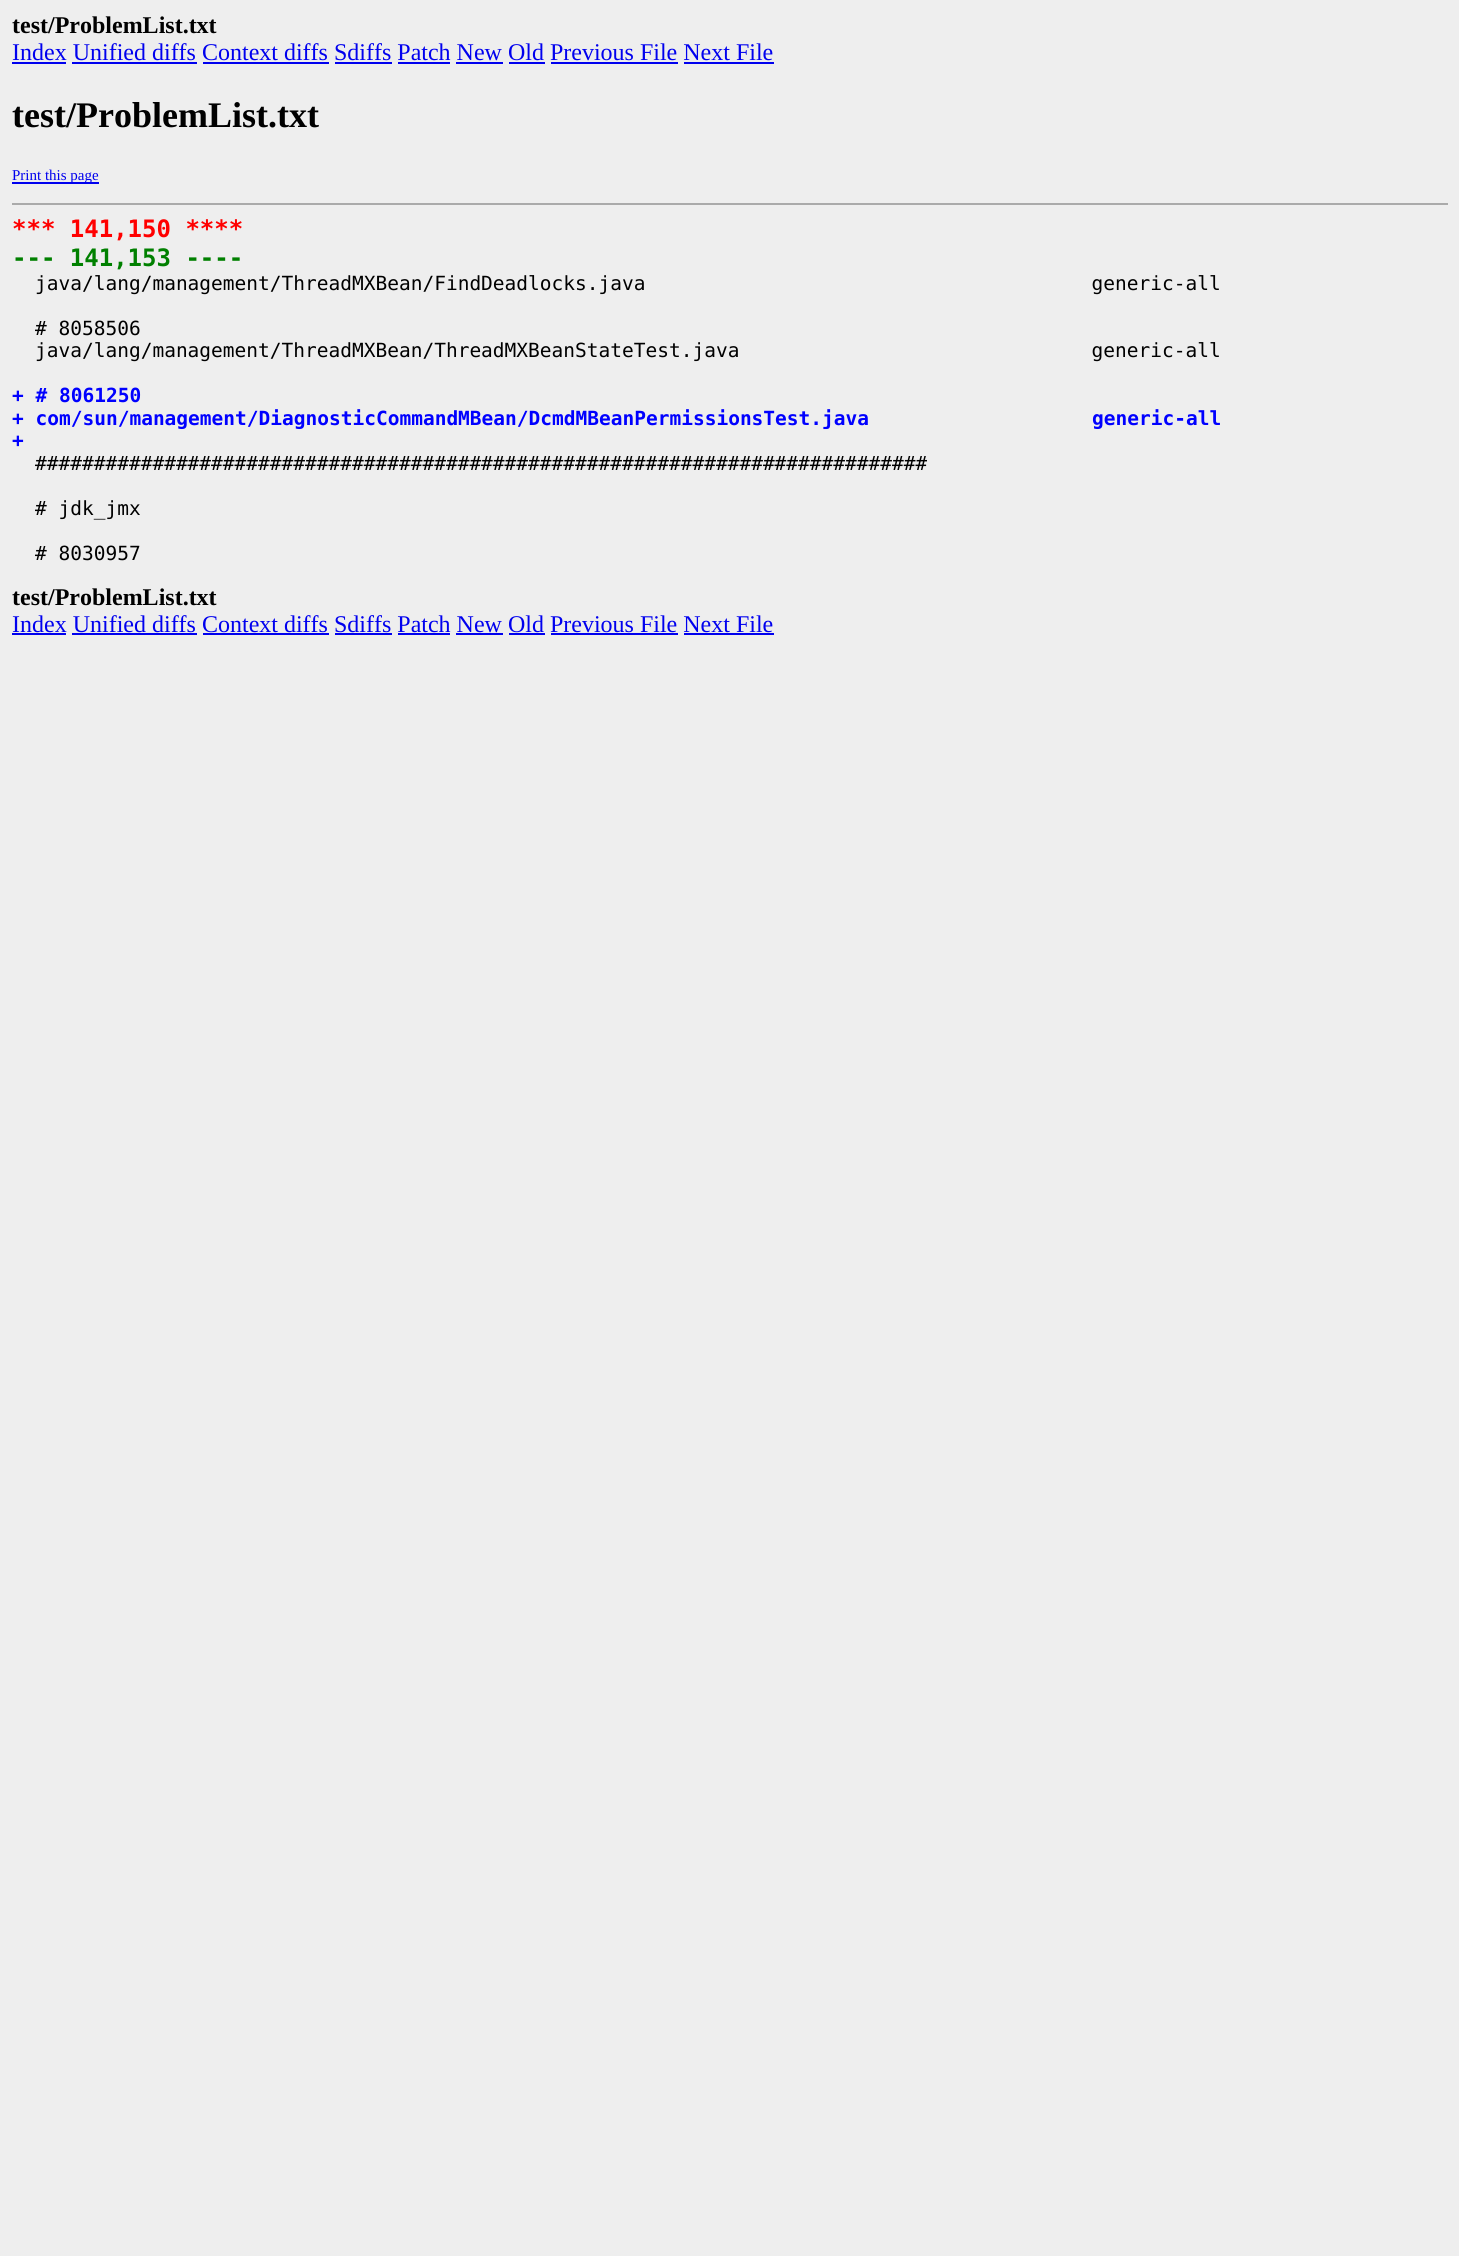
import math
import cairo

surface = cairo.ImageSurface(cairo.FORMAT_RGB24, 1459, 2256)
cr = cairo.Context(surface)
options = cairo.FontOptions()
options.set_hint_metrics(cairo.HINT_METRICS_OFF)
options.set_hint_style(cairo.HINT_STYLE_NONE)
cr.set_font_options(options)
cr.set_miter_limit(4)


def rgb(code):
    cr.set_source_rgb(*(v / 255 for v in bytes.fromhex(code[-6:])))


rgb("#eeeeee")
cr.paint()
for x, y, w, h, color in [
    (12, 62, 54, 2, "#0000ee"),
    (72, 62, 125, 2, "#0000ee"),
    (203, 62, 126, 2, "#0000ee"),
    (335, 62, 57, 2, "#0000ee"),
    (398, 62, 52, 2, "#0000ee"),
    (456, 62, 47, 2, "#0000ee"),
    (509, 62, 36, 2, "#0000ee"),
    (551, 62, 127, 2, "#0000ee"),
    (684, 62, 90, 2, "#0000ee"),
    (12, 182, 87, 2, "#0000ee"),
    (12, 203, 1436, 2, "#aaaaaa"),
    (12, 633, 54, 2, "#0000ee"),
    (72, 633, 125, 2, "#0000ee"),
    (203, 633, 126, 2, "#0000ee"),
    (335, 633, 57, 2, "#0000ee"),
    (398, 633, 52, 2, "#0000ee"),
    (456, 633, 47, 2, "#0000ee"),
    (509, 633, 36, 2, "#0000ee"),
    (551, 633, 127, 2, "#0000ee"),
    (684, 633, 90, 2, "#0000ee"),
]:
    rgb(color)
    cr.rectangle(x, y, w, h)
    cr.fill()
cr.select_font_face("Liberation Serif", cairo.FONT_SLANT_NORMAL, cairo.FONT_WEIGHT_BOLD)
cr.set_font_size(24)
rgb("#000000")
cr.move_to(12, 33)
cr.show_text("test/ProblemList.txt")
cr.select_font_face("Liberation Serif")
rgb("#0000ee")
cr.move_to(12, 60)
cr.show_text("Index Unified diffs Context diffs Sdiffs Patch New Old Previous File Next File")
cr.select_font_face("Liberation Serif", cairo.FONT_SLANT_NORMAL, cairo.FONT_WEIGHT_BOLD)
cr.set_font_size(36)
rgb("#000000")
cr.move_to(12, 127)
cr.show_text("test/ProblemList.txt")
cr.select_font_face("Liberation Serif")
cr.set_font_size(15)
rgb("#0000ee")
cr.move_to(12, 180)
cr.show_text("Print this page")
cr.select_font_face("DejaVu Sans Mono", cairo.FONT_SLANT_NORMAL, cairo.FONT_WEIGHT_BOLD)
cr.set_font_size(24)
rgb("#ff0000")
cr.move_to(12, 237)
cr.show_text("*** 141,150 ****")
rgb("#008000")
cr.move_to(12, 266)
cr.show_text("--- 141,153 ----")
cr.select_font_face("DejaVu Sans Mono")
cr.set_font_size(19.5)
rgb("#000000")
for x, y, s in [
    (35, 290, "java/lang/management/ThreadMXBean/FindDeadlocks.java                                      generic-all"),
    (35, 335, "# 8058506"),
    (35, 357, "java/lang/management/ThreadMXBean/ThreadMXBeanStateTest.java                              generic-all"),
]:
    cr.move_to(x, y)
    cr.show_text(s)
cr.select_font_face("DejaVu Sans Mono", cairo.FONT_SLANT_NORMAL, cairo.FONT_WEIGHT_BOLD)
rgb("#0000ff")
for x, y, s in [
    (12, 402, "+ # 8061250"),
    (12, 425, "+ com/sun/management/DiagnosticCommandMBean/DcmdMBeanPermissionsTest.java                   generic-all"),
    (12, 447, "+"),
]:
    cr.move_to(x, y)
    cr.show_text(s)
cr.select_font_face("DejaVu Sans Mono")
rgb("#000000")
for x, y, s in [
    (35, 470, "############################################################################"),
    (35, 515, "# jdk_jmx"),
    (35, 560, "# 8030957"),
]:
    cr.move_to(x, y)
    cr.show_text(s)
cr.select_font_face("Liberation Serif", cairo.FONT_SLANT_NORMAL, cairo.FONT_WEIGHT_BOLD)
cr.set_font_size(24)
cr.move_to(12, 605)
cr.show_text("test/ProblemList.txt")
cr.select_font_face("Liberation Serif")
rgb("#0000ee")
cr.move_to(12, 632)
cr.show_text("Index Unified diffs Context diffs Sdiffs Patch New Old Previous File Next File")
surface.write_to_png("page.png")
